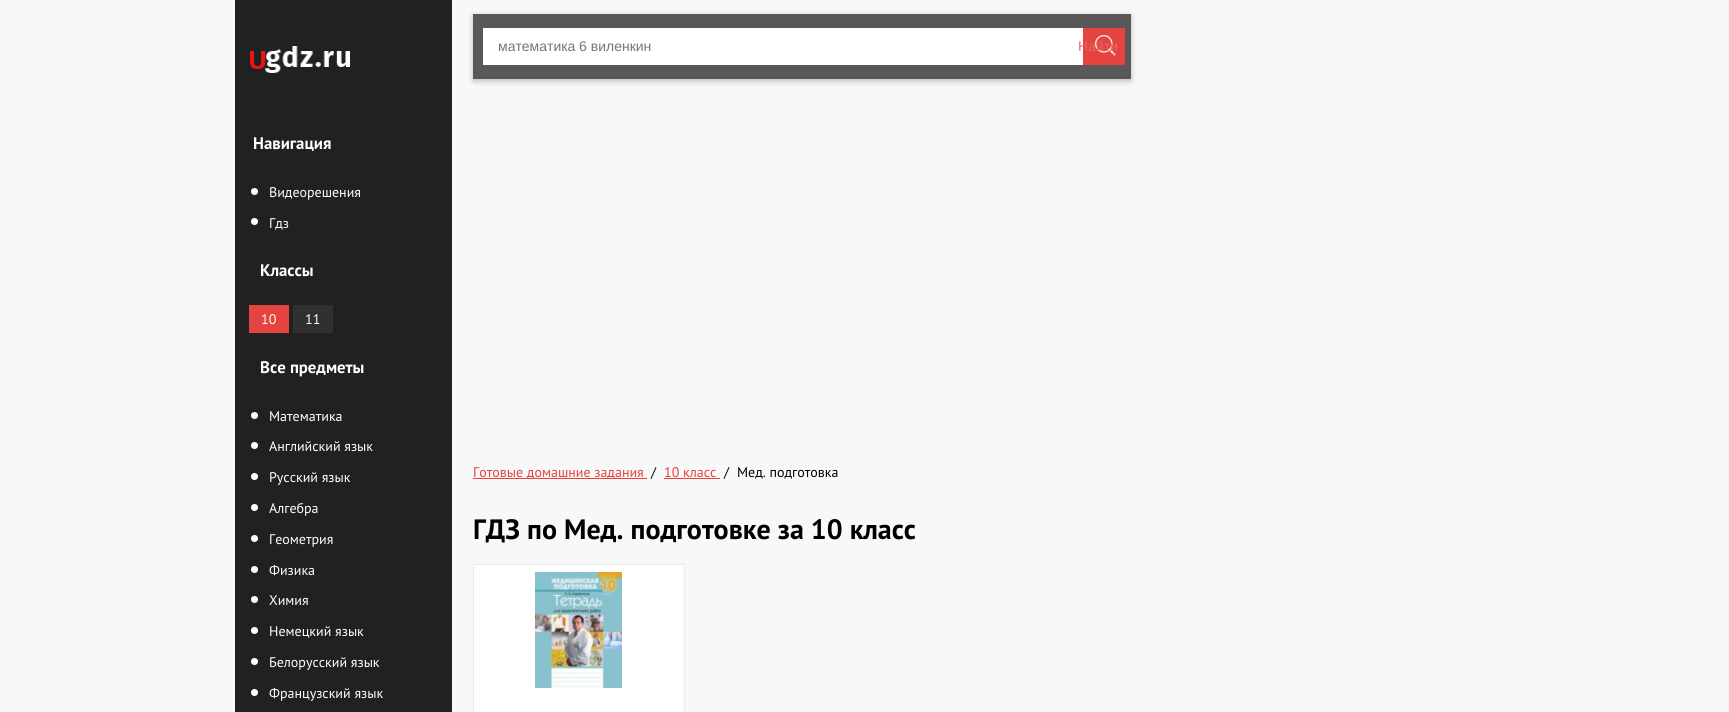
import math
import cairo

surface = cairo.ImageSurface(cairo.FORMAT_RGB24, 1729, 712)
cr = cairo.Context(surface)
options = cairo.FontOptions()
options.set_hint_metrics(cairo.HINT_METRICS_OFF)
options.set_hint_style(cairo.HINT_STYLE_NONE)
cr.set_font_options(options)
cr.set_miter_limit(4)


def rgb(code):
    cr.set_source_rgb(*(v / 255 for v in bytes.fromhex(code[-6:])))


def rrect(x, y, w, h, r):
    cr.new_sub_path()
    for i, (u, v) in enumerate([(x + w - r, y + h - r), (x + r, y + h - r), (x + r, y + r), (x + w - r, y + r)]):
        cr.arc(u, v, r, i * math.pi / 2, (i + 1) * math.pi / 2)
    cr.close_path()


def soft_shadow(x, y, w, h, r, blur, alpha):
    cr.push_group_with_content(cairo.CONTENT_ALPHA)
    cr.set_operator(cairo.OPERATOR_SOURCE)
    for i in range(15, -16, -2):
        e = blur * i / 6
        if min(w, h) + 2 * e > 0:
            cr.set_source_rgba(0, 0, 0, alpha * math.erfc((i - 1) / 8.5) / 2)
            rrect(x - e, y - e, w + 2 * e, h + 2 * e, max(0, min(r + e + blur * .6, min(w, h) / 2 + e)))
            cr.fill()
    cr.mask(cr.pop_group())


def image(path, x, y, w, h):
    cr.save()
    cr.set_source_surface(cairo.ImageSurface.create_from_png(path), x, y)
    cr.rectangle(x, y, w, h)
    cr.fill()
    cr.restore()


rgb("#f8f8f8")
cr.paint()
rgb("#212121")
cr.rectangle(235, 0, 217, 712)
cr.fill()
rgb("#ffffff")
cr.arc(254.5, 191.5, 3.5, 0, 2 * math.pi)
cr.fill()
cr.arc(254.5, 221.5, 3.5, 0, 2 * math.pi)
cr.fill()
rgb("#e4433f")
cr.rectangle(249, 305, 40, 28)
cr.fill()
rgb("#303030")
cr.rectangle(293, 305, 40, 28)
cr.fill()
rgb("#ffffff")
cr.arc(254.5, 415.5, 3.5, 0, 2 * math.pi)
cr.fill()
cr.arc(254.5, 445.5, 3.5, 0, 2 * math.pi)
cr.fill()
cr.arc(254.5, 476.5, 3.5, 0, 2 * math.pi)
cr.fill()
cr.arc(254.5, 507.5, 3.5, 0, 2 * math.pi)
cr.fill()
cr.arc(254.5, 538.5, 3.5, 0, 2 * math.pi)
cr.fill()
cr.arc(254.5, 569.5, 3.5, 0, 2 * math.pi)
cr.fill()
cr.arc(254.5, 599.5, 3.5, 0, 2 * math.pi)
cr.fill()
cr.arc(254.5, 630.5, 3.5, 0, 2 * math.pi)
cr.fill()
cr.arc(254.5, 661.5, 3.5, 0, 2 * math.pi)
cr.fill()
cr.arc(254.5, 692.5, 3.5, 0, 2 * math.pi)
cr.fill()
rgb("#000000")
soft_shadow(473, 16, 658, 65, 0, 3, 0.25)
rgb("#585858")
cr.rectangle(473, 14, 658, 65)
cr.fill()
rgb("#e4433f")
cr.rectangle(1083, 28, 42, 37)
cr.fill()
image("img/1.png", 1095, 35, 21, 21)
for x, y, w, h, color in [
    (483, 28, 600, 37, "#ffffff"),
    (473, 478, 174, 1, "#e4433f"),
    (664, 478, 56, 1, "#e4433f"),
]:
    rgb(color)
    cr.rectangle(x, y, w, h)
    cr.fill()
rgb("#ffffff")
cr.rectangle(473.5, 564.5, 211, 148)
cr.fill_preserve()
rgb("#ebebeb")
cr.set_line_width(1)
cr.stroke()
image("img/2.png", 535, 572, 87, 116)
image("img/3.png", 250, 46, 100, 27)
cr.select_font_face("PT Sans", cairo.FONT_SLANT_NORMAL, cairo.FONT_WEIGHT_BOLD)
cr.set_font_size(16.75)
rgb("#ffffff")
cr.move_to(253, 149)
cr.show_text("Навигация")
cr.select_font_face("PT Sans")
cr.set_font_size(14)
cr.move_to(269, 197)
cr.show_text("Видеорешения")
cr.move_to(269, 228)
cr.show_text("Гдз")
cr.select_font_face("PT Sans", cairo.FONT_SLANT_NORMAL, cairo.FONT_WEIGHT_BOLD)
cr.set_font_size(16.75)
cr.move_to(260, 276)
cr.show_text("Классы")
cr.select_font_face("PT Sans")
cr.set_font_size(14)
cr.move_to(261, 324)
cr.show_text("10")
cr.move_to(305, 324)
cr.show_text("11")
cr.select_font_face("PT Sans", cairo.FONT_SLANT_NORMAL, cairo.FONT_WEIGHT_BOLD)
cr.set_font_size(16.75)
cr.move_to(260, 373)
cr.show_text("Все предметы")
cr.select_font_face("PT Sans")
cr.set_font_size(14)
for x, y, s in [
    (269, 421, "Математика"),
    (269, 451, "Английский язык"),
    (269, 482, "Русский язык"),
    (269, 513, "Алгебра"),
    (269, 544, "Геометрия"),
    (269, 575, "Физика"),
    (269, 605, "Химия"),
    (269, 636, "Немецкий язык"),
    (269, 667, "Белорусский язык"),
    (269, 698, "Французский язык"),
]:
    cr.move_to(x, y)
    cr.show_text(s)
cr.select_font_face("Liberation Sans")
rgb("#757575")
cr.move_to(498, 51)
cr.show_text("математика 6 виленкин")
rgb("#e76562")
cr.move_to(1078, 51)
cr.show_text("Найти")
cr.select_font_face("PT Sans")
rgb("#e4433f")
cr.move_to(473, 477)
cr.show_text("Готовые домашние задания")
rgb("#000000")
cr.move_to(651, 477)
cr.show_text("/")
rgb("#e4433f")
cr.move_to(664, 477)
cr.show_text("10 класс")
rgb("#000000")
cr.move_to(724, 477)
cr.show_text("/")
cr.move_to(737, 477)
cr.show_text("Мед. подготовка")
cr.select_font_face("PT Sans", cairo.FONT_SLANT_NORMAL, cairo.FONT_WEIGHT_BOLD)
cr.set_font_size(28)
cr.move_to(473, 539)
cr.show_text("ГДЗ по Мед. подготовке за 10 класс")
surface.write_to_png("page.png")
